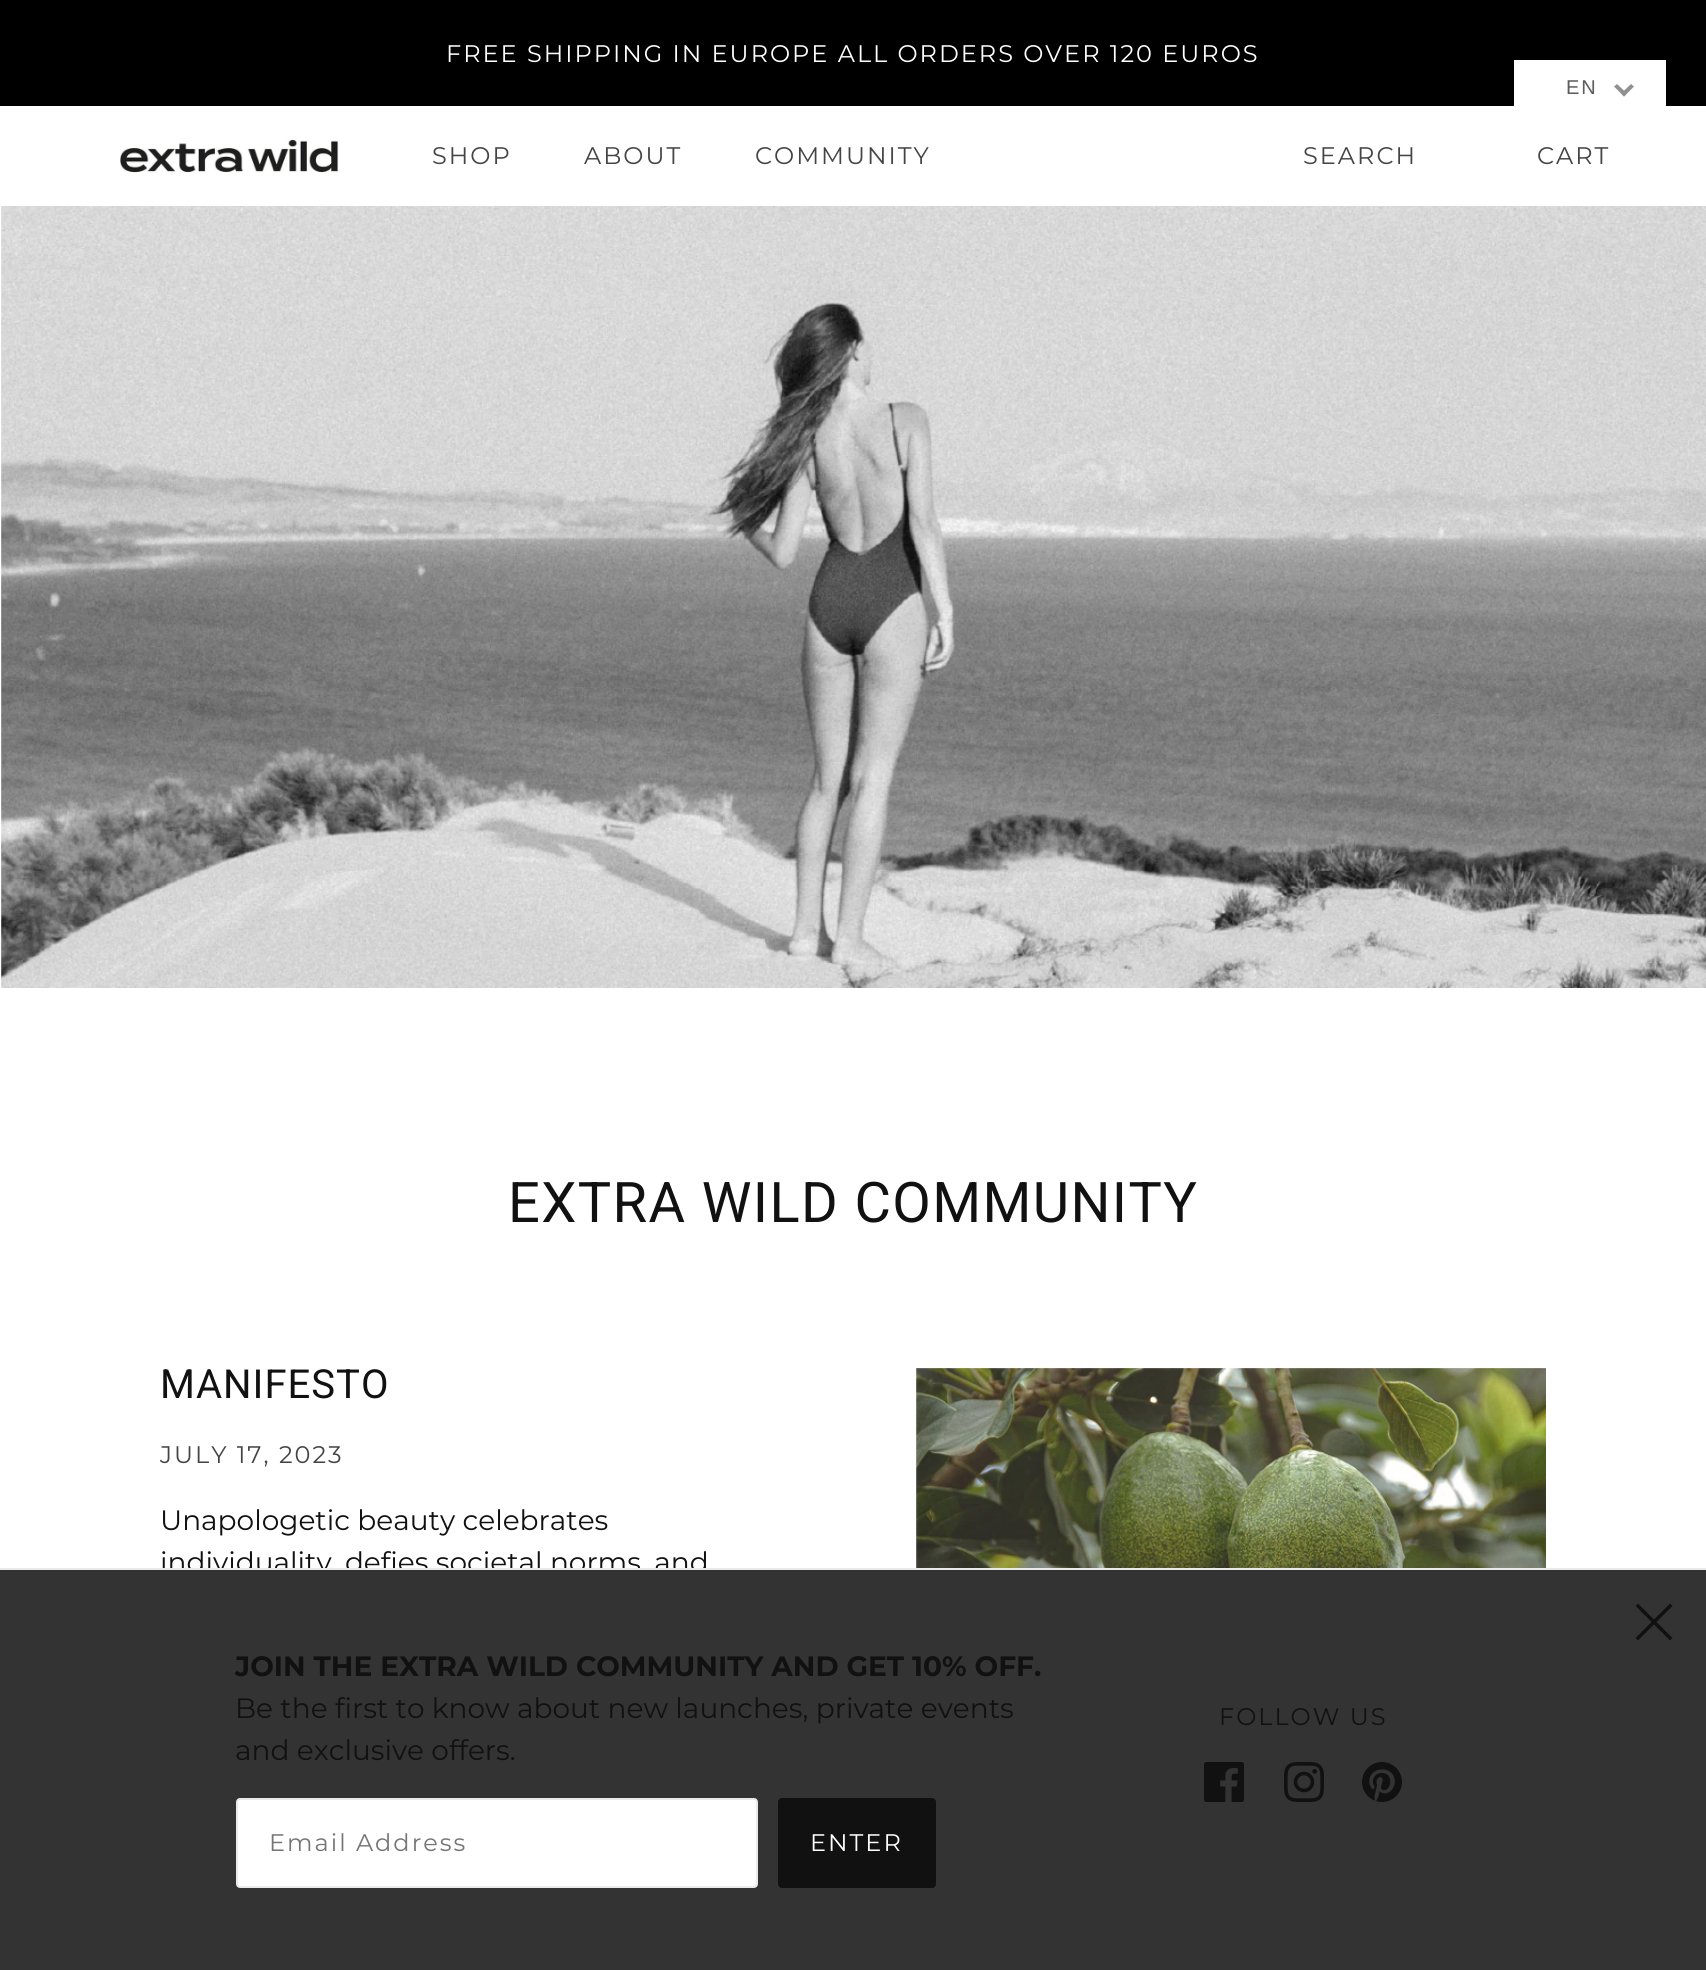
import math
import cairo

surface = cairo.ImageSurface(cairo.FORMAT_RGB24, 1706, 1970)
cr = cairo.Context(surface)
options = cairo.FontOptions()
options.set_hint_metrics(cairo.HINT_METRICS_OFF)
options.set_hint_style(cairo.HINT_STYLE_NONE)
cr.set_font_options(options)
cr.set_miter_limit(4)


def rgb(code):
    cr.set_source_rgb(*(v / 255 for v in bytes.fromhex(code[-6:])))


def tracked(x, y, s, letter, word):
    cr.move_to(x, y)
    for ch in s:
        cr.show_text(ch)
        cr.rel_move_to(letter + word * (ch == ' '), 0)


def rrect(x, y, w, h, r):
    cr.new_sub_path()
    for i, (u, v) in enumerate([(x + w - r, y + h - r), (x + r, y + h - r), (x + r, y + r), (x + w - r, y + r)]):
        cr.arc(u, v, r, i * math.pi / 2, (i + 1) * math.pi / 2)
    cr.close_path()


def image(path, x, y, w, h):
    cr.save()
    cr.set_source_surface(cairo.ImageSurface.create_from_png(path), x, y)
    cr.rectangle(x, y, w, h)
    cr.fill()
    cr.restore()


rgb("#ffffff")
cr.paint()
rgb("#000000")
cr.rectangle(0, 0, 1706, 106)
cr.fill()
image("img/1.png", 120, 139, 219, 34)
image("img/2.png", 1, 206, 1705, 782)
image("img/3.png", 916, 1368, 630, 200)
rgb("#ffffff")
cr.rectangle(1514, 60, 152, 46)
cr.fill()
rgb("#909090")
cr.new_path()
cr.move_to(1631, 84)
cr.line_to(1634, 86.5)
cr.line_to(1624, 96.5)
cr.line_to(1621, 93.5)
cr.close_path()
cr.fill()
cr.new_path()
cr.move_to(1617, 84)
cr.line_to(1627, 93.5)
cr.line_to(1624, 96.5)
cr.line_to(1614, 86.5)
cr.close_path()
cr.fill()
cr.select_font_face("Montserrat")
cr.set_font_size(24)
rgb("#ffffff")
tracked(446, 62, "FREE SHIPPING IN EUROPE ALL ORDERS OVER 120 EUROS", 2, 0)
rgb("#444444")
for x, y, s in [
    (432, 164, "SHOP"),
    (584, 164, "ABOUT"),
    (755, 164, "COMMUNITY"),
    (1303, 164, "SEARCH"),
    (1537, 164, "CART"),
]:
    tracked(x, y, s, 2, 0)
cr.select_font_face("Roboto")
cr.set_font_size(56)
rgb("#111111")
tracked(508, 1222, "EXTRA WILD COMMUNITY", 1.4, 0)
cr.set_font_size(40)
tracked(160, 1398, "MANIFESTO", 1, 0)
cr.select_font_face("Montserrat")
cr.set_font_size(24)
rgb("#444444")
tracked(160, 1463, "JULY 17, 2023", 2, 0)
cr.set_font_size(28)
rgb("#111111")
cr.move_to(160, 1530)
cr.show_text("Unapologetic beauty celebrates")
cr.move_to(160, 1572)
cr.show_text("individuality, defies societal norms, and")
rgb("#333333")
cr.rectangle(0, 1570, 1706, 400)
cr.fill()
rgb("#eaeaea")
cr.rectangle(0, 1568, 1706, 2)
cr.fill()
rgb("#111111")
cr.new_path()
cr.move_to(1654, 1619.5)
cr.line_to(1670, 1603.5)
cr.line_to(1672.5, 1606)
cr.line_to(1656.5, 1622)
cr.line_to(1672.5, 1638)
cr.line_to(1670, 1640.5)
cr.line_to(1654, 1624.5)
cr.line_to(1638, 1640.5)
cr.line_to(1635.5, 1638)
cr.line_to(1651.5, 1622)
cr.line_to(1635.5, 1606)
cr.line_to(1638, 1603.5)
cr.close_path()
cr.fill()
cr.select_font_face("Montserrat", cairo.FONT_SLANT_NORMAL, cairo.FONT_WEIGHT_BOLD)
cr.move_to(235, 1676)
cr.show_text("JOIN THE EXTRA WILD COMMUNITY AND GET 10% OFF.")
cr.select_font_face("Montserrat")
cr.move_to(235, 1718)
cr.show_text("Be the first to know about new launches, private events")
cr.move_to(235, 1760)
cr.show_text("and exclusive offers.")
rgb("#ffffff")
rrect(237, 1799, 520, 88, 3)
cr.fill_preserve()
rgb("#eaeaea")
cr.stroke()
cr.set_font_size(24)
rgb("#757575")
tracked(269, 1851, "Email Address", 2, 0)
rgb("#111111")
rrect(778, 1798, 158, 90, 4)
cr.fill()
rgb("#ffffff")
tracked(810, 1851, "ENTER", 2, 0)
rgb("#111111")
tracked(1219, 1725, "FOLLOW US", 2, 0)
image("img/4.png", 1204, 1762, 40, 40)
image("img/5.png", 1284, 1762, 40, 40)
image("img/6.png", 1362, 1762, 40, 40)
cr.select_font_face("Liberation Sans")
cr.set_font_size(20)
rgb("#5c5c5c")
tracked(1566, 94, "EN", 2, 0)
surface.write_to_png("page.png")
